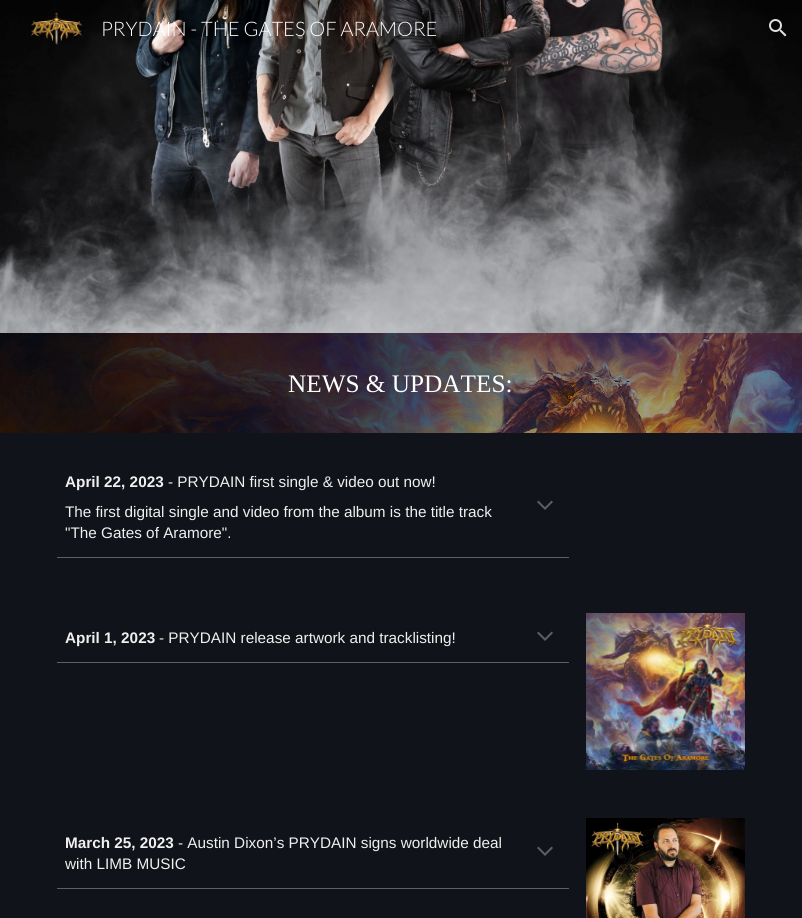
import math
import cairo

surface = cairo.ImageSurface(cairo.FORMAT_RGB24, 802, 918)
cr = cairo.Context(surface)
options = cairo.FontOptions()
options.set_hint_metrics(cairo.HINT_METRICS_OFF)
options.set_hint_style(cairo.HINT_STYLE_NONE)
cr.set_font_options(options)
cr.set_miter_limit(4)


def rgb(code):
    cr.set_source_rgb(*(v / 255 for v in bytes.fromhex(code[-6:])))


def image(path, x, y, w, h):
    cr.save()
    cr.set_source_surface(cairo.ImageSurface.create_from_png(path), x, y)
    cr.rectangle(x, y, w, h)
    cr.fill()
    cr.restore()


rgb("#ffffff")
cr.paint()
image("img/3.png", 0, 0, 802, 333)
image("img/1.png", 30, 12, 53, 33)
image("img/2.png", 769, 19, 18, 18)
image("img/4.png", 0, 333, 802, 100)
rgb("#11131a")
cr.rectangle(0, 433, 802, 485)
cr.fill()
rgb("#5d5f63")
cr.rectangle(57, 557, 512, 1)
cr.fill()
image("img/5.png", 537, 500, 16, 10)
cr.rectangle(57, 662, 512, 1)
cr.fill()
image("img/5.png", 537, 631, 16, 10)
image("img/6.png", 586, 613, 159, 157)
cr.rectangle(57, 888, 512, 1)
cr.fill()
image("img/5.png", 537, 846, 16, 10)
image("img/7.png", 586, 818, 159, 100)
cr.select_font_face("Lato Light")
cr.set_font_size(20)
rgb("#ffffff")
cr.move_to(101, 36)
cr.show_text("PRYDAIN - THE GATES OF ARAMORE")
cr.select_font_face("Tinos")
cr.set_font_size(25.25)
cr.move_to(288, 392)
cr.show_text("NEWS & UPDATES:")
cr.select_font_face("Liberation Sans", cairo.FONT_SLANT_NORMAL, cairo.FONT_WEIGHT_BOLD)
cr.set_font_size(15.3)
rgb("#efefef")
cr.move_to(65, 487)
cr.show_text("April 22, 2023")
cr.select_font_face("Liberation Sans")
for x, y, s in [
    (168, 487, "- PRYDAIN first single & video out now!"),
    (65, 517, "The first digital single and video from the album is the title track"),
    (65, 538, "\"The Gates of Aramore\"."),
]:
    cr.move_to(x, y)
    cr.show_text(s)
cr.select_font_face("Liberation Sans", cairo.FONT_SLANT_NORMAL, cairo.FONT_WEIGHT_BOLD)
cr.move_to(65, 643)
cr.show_text("April 1, 2023")
cr.select_font_face("Liberation Sans")
cr.move_to(159, 643)
cr.show_text("- PRYDAIN release artwork and tracklisting!")
cr.select_font_face("Liberation Sans", cairo.FONT_SLANT_NORMAL, cairo.FONT_WEIGHT_BOLD)
cr.move_to(65, 848)
cr.show_text("March 25, 2023")
cr.select_font_face("Liberation Sans")
cr.move_to(178, 848)
cr.show_text("- Austin Dixon’s PRYDAIN signs worldwide deal")
cr.move_to(65, 869)
cr.show_text("with LIMB MUSIC")
surface.write_to_png("page.png")
